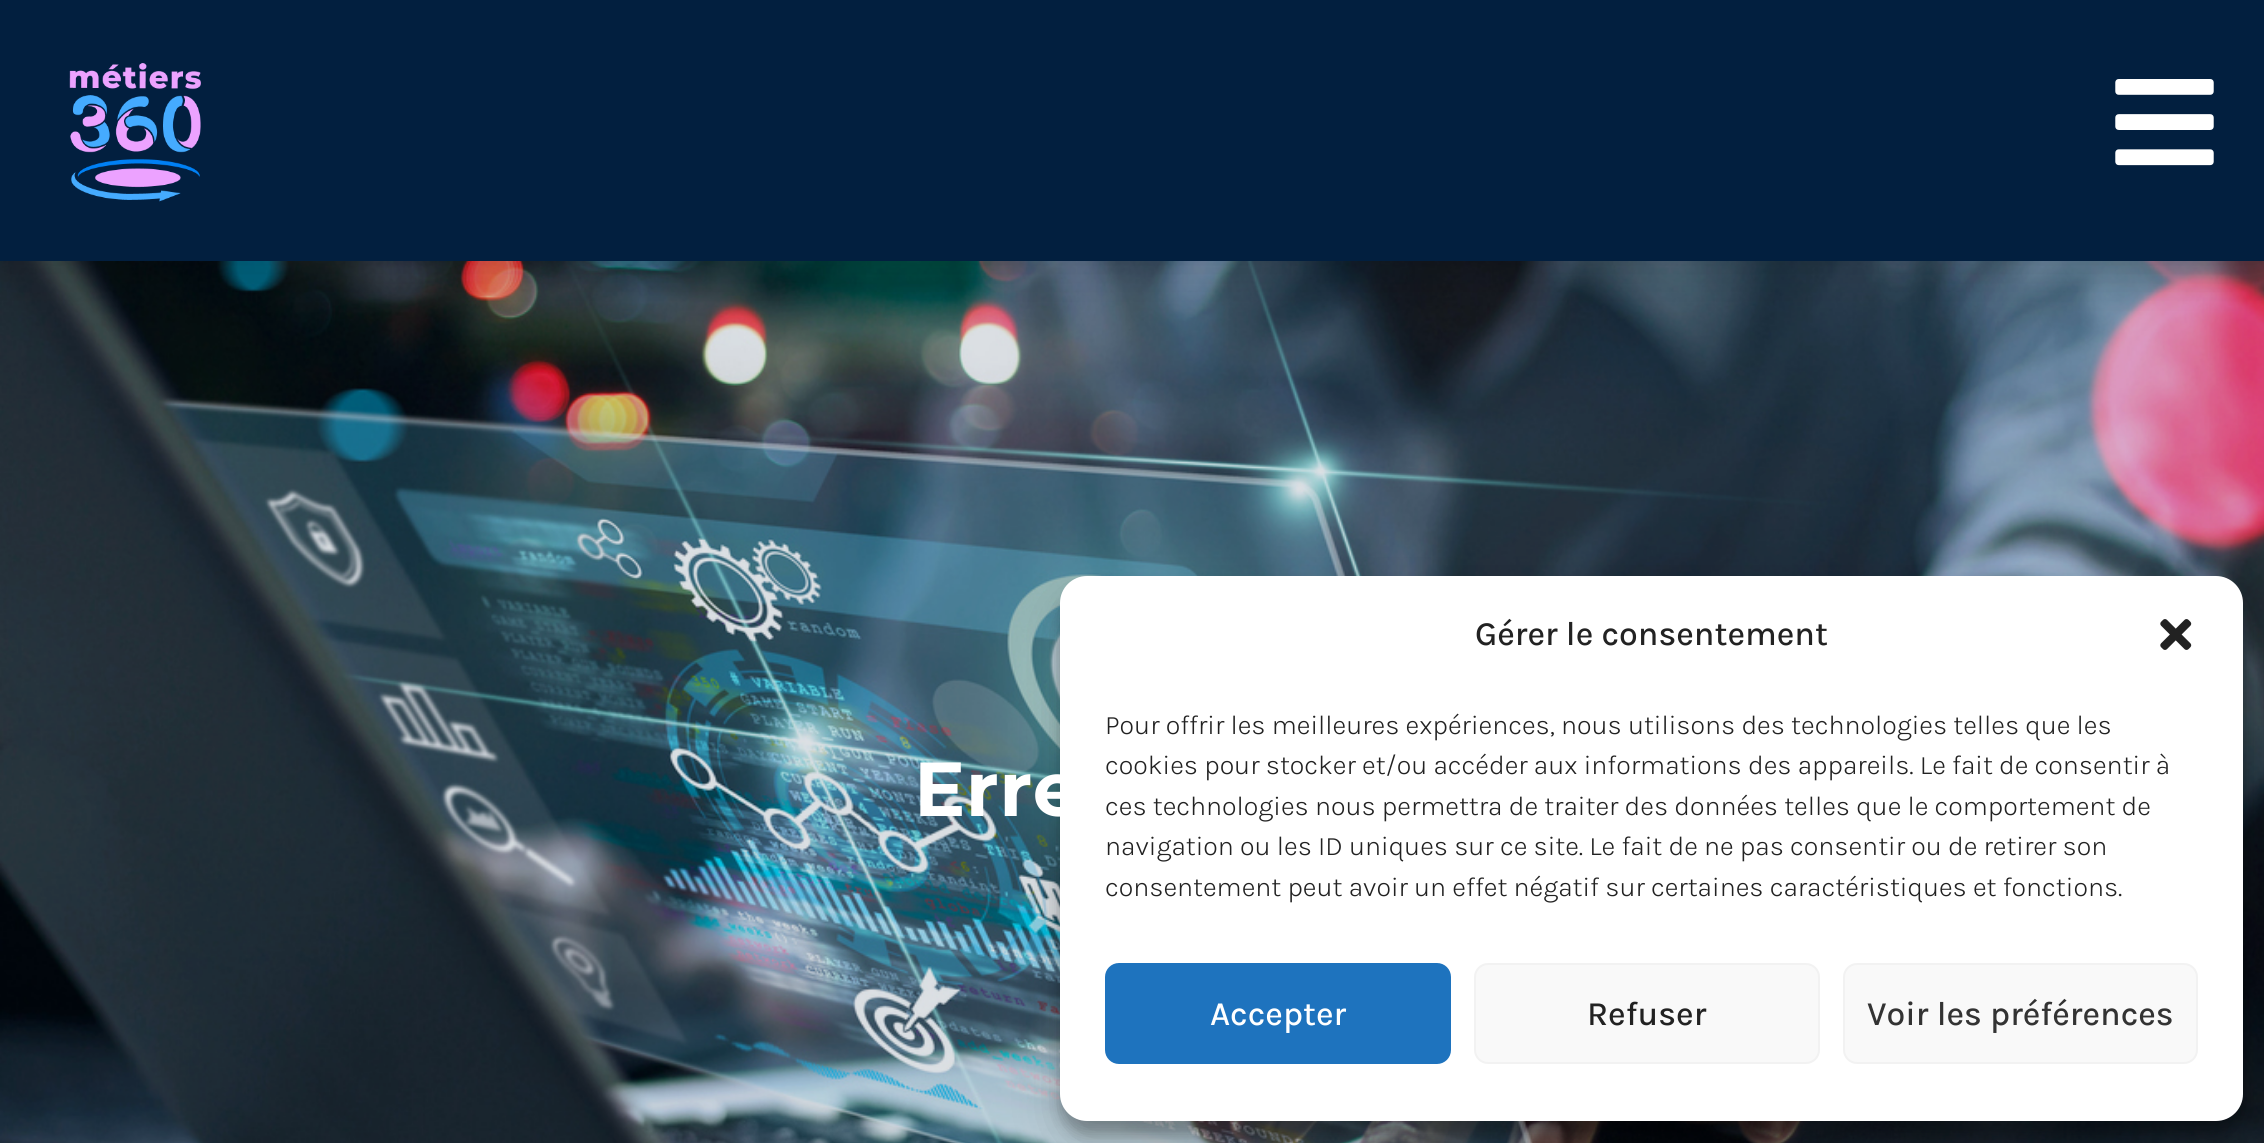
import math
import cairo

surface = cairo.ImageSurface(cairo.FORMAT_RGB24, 2264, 1143)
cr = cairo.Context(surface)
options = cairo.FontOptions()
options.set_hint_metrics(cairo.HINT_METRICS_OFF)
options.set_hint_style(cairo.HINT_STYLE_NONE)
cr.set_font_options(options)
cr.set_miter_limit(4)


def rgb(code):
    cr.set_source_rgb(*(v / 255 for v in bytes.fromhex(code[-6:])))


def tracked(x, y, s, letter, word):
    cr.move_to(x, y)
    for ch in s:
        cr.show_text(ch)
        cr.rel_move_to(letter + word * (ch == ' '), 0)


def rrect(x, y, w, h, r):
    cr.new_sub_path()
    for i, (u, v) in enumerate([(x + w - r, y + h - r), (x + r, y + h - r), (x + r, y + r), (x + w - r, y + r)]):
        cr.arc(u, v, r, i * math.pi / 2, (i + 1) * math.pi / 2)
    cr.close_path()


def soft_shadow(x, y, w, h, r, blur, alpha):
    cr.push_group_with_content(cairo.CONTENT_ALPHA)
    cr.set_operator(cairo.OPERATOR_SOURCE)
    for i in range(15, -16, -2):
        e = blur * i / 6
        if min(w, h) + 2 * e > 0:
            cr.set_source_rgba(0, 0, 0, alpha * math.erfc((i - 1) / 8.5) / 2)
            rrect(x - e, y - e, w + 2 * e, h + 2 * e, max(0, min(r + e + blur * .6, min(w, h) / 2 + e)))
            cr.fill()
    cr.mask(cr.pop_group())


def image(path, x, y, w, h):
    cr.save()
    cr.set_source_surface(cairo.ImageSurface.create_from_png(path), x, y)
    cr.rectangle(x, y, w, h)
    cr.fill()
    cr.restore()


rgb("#ffffff")
cr.paint()
image("img/3.png", 0, 261, 2264, 882)
rgb("#000000")
soft_shadow(0, 0, 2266, 261, 0, 27, 0.15)
rgb("#021f3f")
cr.rectangle(0, 0, 2264, 261)
cr.fill()
image("img/1.png", 69, 63, 132, 139)
image("img/2.png", 2115, 79, 99, 87)
rgb("#000000")
soft_shadow(1060, 590, 1183, 544, 27, 7, 0.23)
soft_shadow(1060, 599, 1183, 544, 27, 22.5, 0.19)
rgb("#ffffff")
rrect(1060, 576, 1183, 545, 27)
cr.fill()
image("img/4.png", 2160, 619, 32, 31)
rgb("#1e73be")
rrect(1106, 964, 344, 99, 13)
cr.fill_preserve()
cr.stroke()
rgb("#f9f9f9")
rrect(1475, 964, 344, 99, 13)
cr.fill_preserve()
rgb("#f2f2f2")
cr.stroke()
rgb("#f9f9f9")
rrect(1844, 964, 353, 99, 13)
cr.fill_preserve()
rgb("#f2f2f2")
cr.stroke()
cr.select_font_face("Montserrat", cairo.FONT_SLANT_NORMAL, cairo.FONT_WEIGHT_BOLD)
cr.set_font_size(76.5)
rgb("#ffffff")
tracked(914, 816, "Erre", 0.5, 0)
cr.select_font_face("Karla Medium")
cr.set_font_size(33.75)
rgb("#222222")
cr.move_to(1475, 645)
cr.show_text("Gérer le consentement")
cr.select_font_face("Karla Light")
cr.set_font_size(27)
for x, y, s in [
    (1105, 734, "Pour offrir les meilleures expériences, nous utilisons des technologies telles que les"),
    (1105, 774, "cookies pour stocker et/ou accéder aux informations des appareils. Le fait de consentir à"),
    (1105, 815, "ces technologies nous permettra de traiter des données telles que le comportement de"),
    (1105, 855, "navigation ou les ID uniques sur ce site. Le fait de ne pas consentir ou de retirer son"),
    (1105, 896, "consentement peut avoir un effet négatif sur certaines caractéristiques et fonctions."),
]:
    cr.move_to(x, y)
    cr.show_text(s)
cr.select_font_face("Karla Medium")
cr.set_font_size(33.75)
rgb("#ffffff")
cr.move_to(1210, 1025)
cr.show_text("Accepter")
rgb("#222222")
cr.move_to(1587, 1025)
cr.show_text("Refuser")
rgb("#333333")
cr.move_to(1867, 1025)
cr.show_text("Voir les préférences")
surface.write_to_png("page.png")
